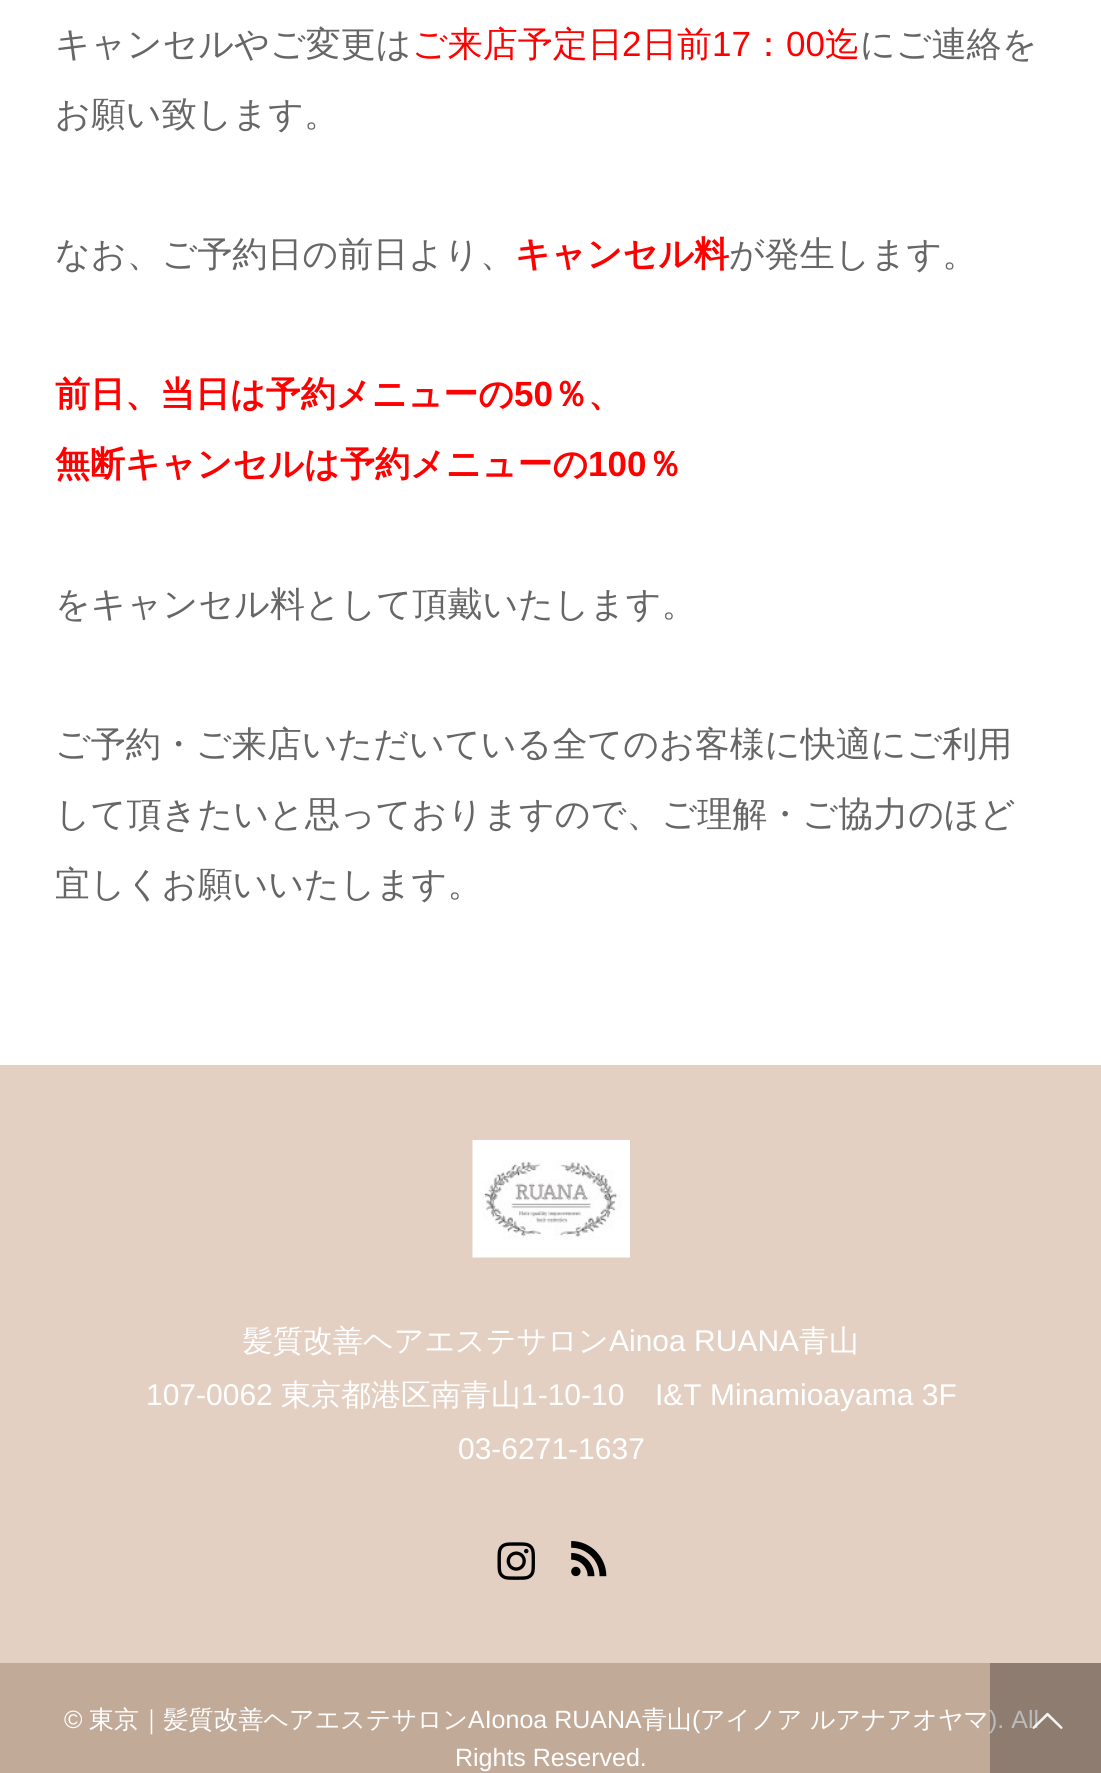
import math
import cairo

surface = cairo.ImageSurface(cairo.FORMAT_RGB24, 1101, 1773)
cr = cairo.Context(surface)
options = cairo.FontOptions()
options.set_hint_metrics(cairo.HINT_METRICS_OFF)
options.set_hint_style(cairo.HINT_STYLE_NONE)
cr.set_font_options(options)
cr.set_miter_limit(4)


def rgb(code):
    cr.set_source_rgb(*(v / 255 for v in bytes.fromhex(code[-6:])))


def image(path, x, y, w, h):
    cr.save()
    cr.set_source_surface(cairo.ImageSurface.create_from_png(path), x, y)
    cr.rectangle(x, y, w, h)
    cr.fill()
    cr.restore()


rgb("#ffffff")
cr.paint()
rgb("#e3d0c3")
cr.rectangle(0, 1065, 1101, 598)
cr.fill()
image("img/1.png", 472, 1140, 158, 118)
image("img/2.png", 497, 1542, 38, 38)
image("img/3.png", 571, 1541, 36, 36)
rgb("#c2aa99")
cr.rectangle(0, 1663, 1101, 110)
cr.fill()
cr.select_font_face("WenQuanYi Zen Hei Medium")
cr.set_font_size(35)
rgb("#666666")
cr.move_to(55, 56)
cr.show_text("キャンセルやご変更は")
rgb("#ff0000")
cr.move_to(412, 56)
cr.show_text("ご来店予定日")
cr.select_font_face("Liberation Sans")
cr.move_to(622, 56)
cr.show_text("2")
cr.select_font_face("WenQuanYi Zen Hei Medium")
cr.move_to(642, 56)
cr.show_text("日前")
cr.select_font_face("Liberation Sans")
cr.move_to(712, 56)
cr.show_text("17")
cr.select_font_face("WenQuanYi Zen Hei Medium")
cr.move_to(751, 56)
cr.show_text("：")
cr.select_font_face("Liberation Sans")
cr.move_to(786, 56)
cr.show_text("00")
cr.select_font_face("WenQuanYi Zen Hei Medium")
cr.move_to(825, 56)
cr.show_text("迄")
rgb("#666666")
for x, y, s in [
    (860, 56, "にご連絡を"),
    (55, 126, "お願い致します。"),
    (55, 266, "なお、ご予約日の前日より、"),
]:
    cr.move_to(x, y)
    cr.show_text(s)
cr.select_font_face("WenQuanYi Zen Hei", cairo.FONT_SLANT_NORMAL, cairo.FONT_WEIGHT_BOLD)
rgb("#ff0000")
cr.move_to(515, 266)
cr.show_text("キャンセル料")
cr.select_font_face("WenQuanYi Zen Hei Medium")
rgb("#666666")
cr.move_to(729, 266)
cr.show_text("が発生します。")
cr.select_font_face("WenQuanYi Zen Hei", cairo.FONT_SLANT_NORMAL, cairo.FONT_WEIGHT_BOLD)
rgb("#ff0000")
cr.move_to(55, 406)
cr.show_text("前日、当日は予約メニューの")
cr.select_font_face("Liberation Sans", cairo.FONT_SLANT_NORMAL, cairo.FONT_WEIGHT_BOLD)
cr.move_to(514, 406)
cr.show_text("50")
cr.select_font_face("WenQuanYi Zen Hei", cairo.FONT_SLANT_NORMAL, cairo.FONT_WEIGHT_BOLD)
cr.move_to(553, 406)
cr.show_text("％、")
cr.move_to(55, 476)
cr.show_text("無断キャンセルは予約メニューの")
cr.select_font_face("Liberation Sans", cairo.FONT_SLANT_NORMAL, cairo.FONT_WEIGHT_BOLD)
cr.move_to(588, 476)
cr.show_text("100")
cr.select_font_face("WenQuanYi Zen Hei", cairo.FONT_SLANT_NORMAL, cairo.FONT_WEIGHT_BOLD)
cr.move_to(647, 476)
cr.show_text("％")
cr.select_font_face("WenQuanYi Zen Hei Medium")
rgb("#666666")
for x, y, s in [
    (55, 616, "をキャンセル料として頂戴いたします。"),
    (55, 756, "ご予約・ご来店いただいている全てのお客様に快適にご利用"),
    (55, 826, "して頂きたいと思っておりますので、ご理解・ご協力のほど"),
    (55, 896, "宜しくお願いいたします。"),
]:
    cr.move_to(x, y)
    cr.show_text(s)
cr.set_font_size(30)
rgb("#ffffff")
cr.move_to(243, 1351)
cr.show_text("髪質改善ヘアエステサロン")
cr.select_font_face("Liberation Sans")
cr.move_to(609, 1351)
cr.show_text("Ainoa RUANA")
cr.select_font_face("WenQuanYi Zen Hei Medium")
cr.move_to(799, 1351)
cr.show_text("青山")
cr.select_font_face("Liberation Sans")
cr.move_to(146, 1405)
cr.show_text("107-0062")
cr.select_font_face("WenQuanYi Zen Hei Medium")
cr.move_to(281, 1405)
cr.show_text("東京都港区南青山")
cr.select_font_face("Liberation Sans")
for x, y, s in [
    (521, 1405, "1-10-10"),
    (655, 1405, "I&T Minamioayama 3F"),
    (458, 1459, "03-6271-1637"),
]:
    cr.move_to(x, y)
    cr.show_text(s)
cr.set_font_size(25)
cr.move_to(64, 1728)
cr.show_text("©")
cr.select_font_face("WenQuanYi Zen Hei Medium")
cr.move_to(89, 1728)
cr.show_text("東京｜髪質改善ヘアエステサロン")
cr.select_font_face("Liberation Sans")
cr.move_to(468, 1728)
cr.show_text("AIonoa RUANA")
cr.select_font_face("WenQuanYi Zen Hei Medium")
cr.move_to(642, 1728)
cr.show_text("青山")
cr.select_font_face("Liberation Sans")
cr.move_to(692, 1728)
cr.show_text("(")
cr.select_font_face("WenQuanYi Zen Hei Medium")
cr.move_to(700, 1728)
cr.show_text("アイノア")
cr.move_to(810, 1728)
cr.show_text("ルアナアオヤマ")
cr.select_font_face("Liberation Sans")
cr.move_to(989, 1728)
cr.show_text("). All")
cr.move_to(455, 1766)
cr.show_text("Rights Reserved.")
cr.set_source_rgba(0, 0, 0, 0.27)
cr.rectangle(990, 1663, 111, 110)
cr.fill()
image("img/4.png", 1032, 1712, 31, 17)
surface.write_to_png("page.png")
